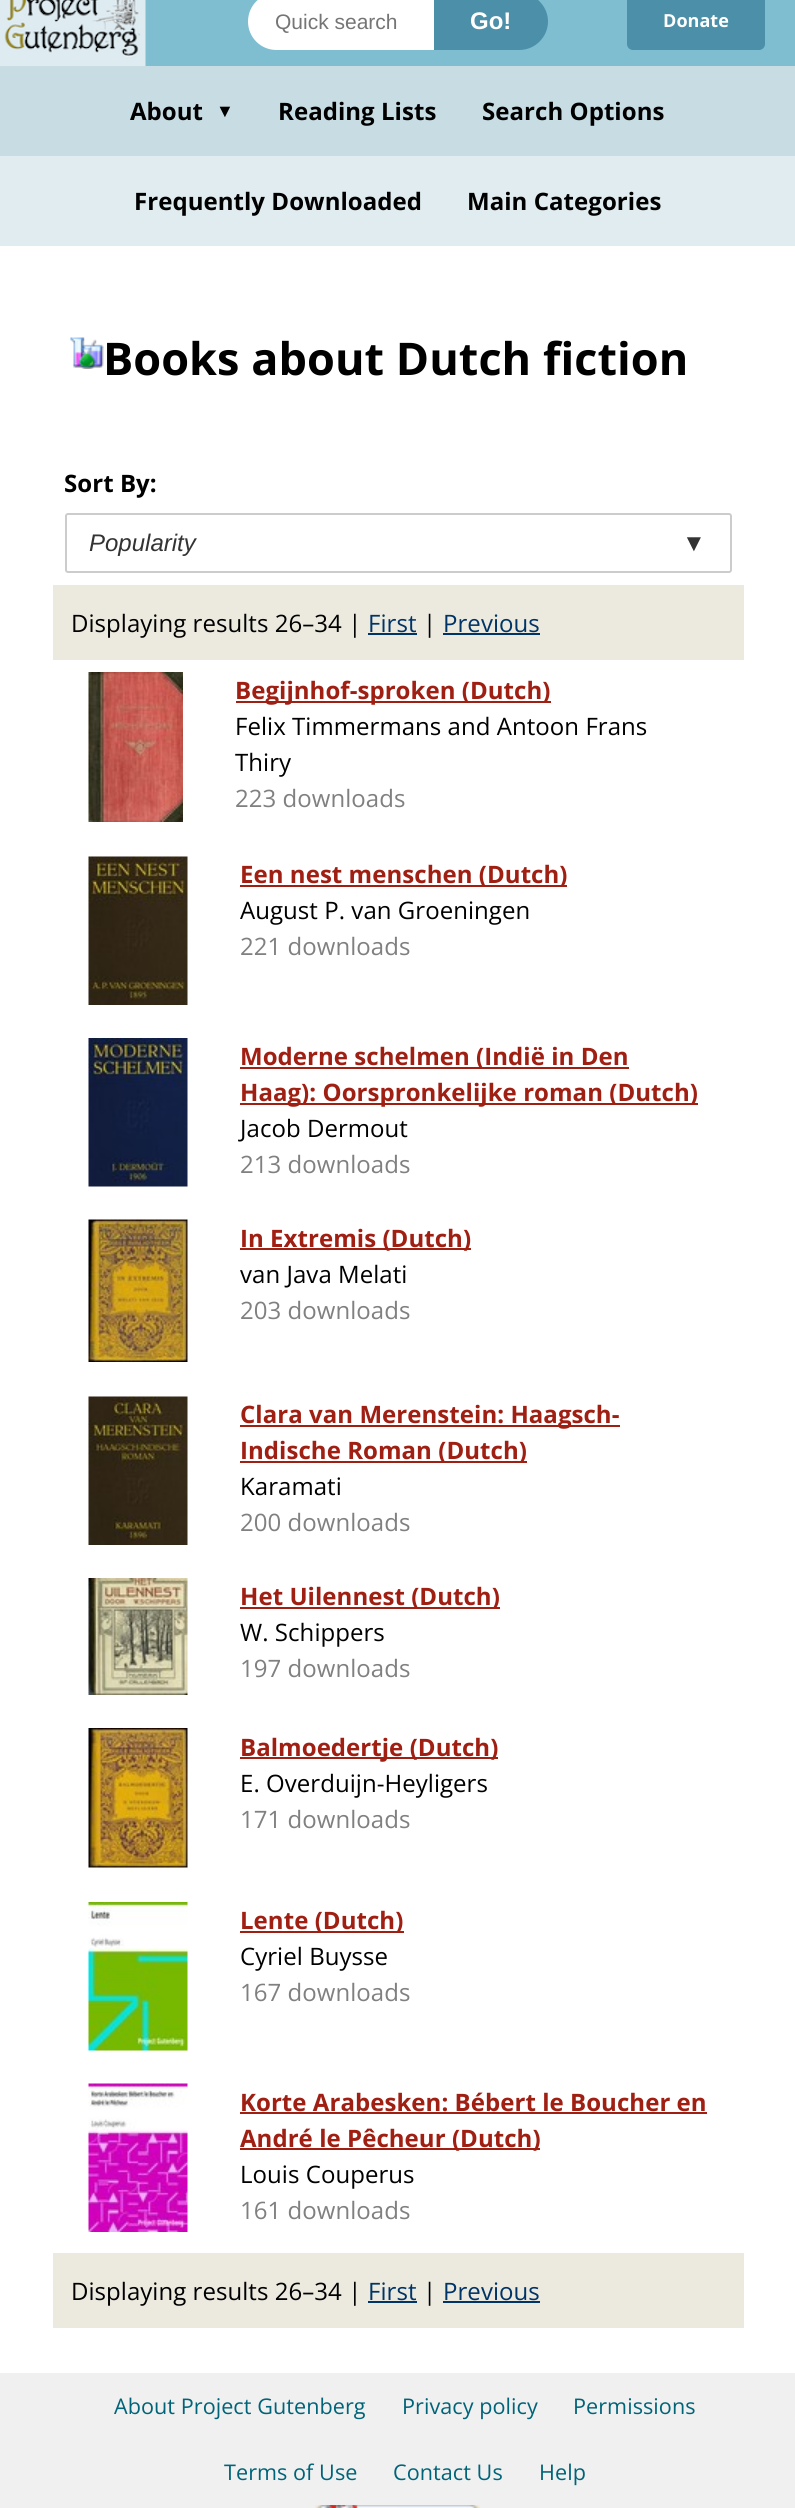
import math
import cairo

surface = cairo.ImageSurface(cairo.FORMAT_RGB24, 795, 2508)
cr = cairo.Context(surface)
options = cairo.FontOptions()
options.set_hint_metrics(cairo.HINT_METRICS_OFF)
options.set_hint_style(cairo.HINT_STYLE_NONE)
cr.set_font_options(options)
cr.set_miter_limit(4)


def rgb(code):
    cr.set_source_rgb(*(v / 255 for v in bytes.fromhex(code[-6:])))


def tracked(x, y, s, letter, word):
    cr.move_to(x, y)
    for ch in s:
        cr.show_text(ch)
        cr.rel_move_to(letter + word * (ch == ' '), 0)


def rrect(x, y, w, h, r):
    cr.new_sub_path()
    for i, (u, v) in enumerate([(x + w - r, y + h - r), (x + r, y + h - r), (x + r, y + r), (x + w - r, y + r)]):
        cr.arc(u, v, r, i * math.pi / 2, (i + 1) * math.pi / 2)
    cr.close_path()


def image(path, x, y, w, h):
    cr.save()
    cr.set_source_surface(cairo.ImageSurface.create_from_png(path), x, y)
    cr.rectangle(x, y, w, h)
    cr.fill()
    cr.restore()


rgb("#ffffff")
cr.paint()
rgb("#7ebed0")
cr.rectangle(145, 0, 650, 66)
cr.fill()
image("img/1.png", 0, 0, 146, 66)
rgb("#ffffff")
cr.new_path()
cr.move_to(276.5, -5.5)
cr.line_to(432.5, -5.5)
cr.line_to(432.5, 48.5)
cr.line_to(276.5, 48.5)
cr.curve_to(261.5, 48.5, 249.5, 36.5, 249.5, 21.5)
cr.curve_to(249.5, 6.5, 261.5, -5.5, 276.5, -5.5)
cr.close_path()
cr.fill_preserve()
cr.set_line_width(3)
cr.stroke()
rgb("#4c8fa8")
cr.new_path()
cr.move_to(434, -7)
cr.line_to(519.5, -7)
cr.curve_to(535, -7, 548, 6, 548, 21.5)
cr.curve_to(548, 37, 535, 50, 519.5, 50)
cr.line_to(434, 50)
cr.close_path()
cr.fill()
rrect(628.5, -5.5, 135, 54, 4.5)
cr.fill_preserve()
cr.stroke()
rgb("#c7dde3")
cr.rectangle(0, 66, 795, 90)
cr.fill()
rgb("#e0ecf0")
cr.rectangle(0, 156, 795, 90)
cr.fill()
image("img/2.png", 70, 337, 34, 32)
rrect(66, 514, 665, 58, 2)
rgb("#cccccc")
cr.set_line_width(2)
cr.stroke()
for x, y, w, h, color in [
    (53, 585, 691, 75, "#eceadf"),
    (368, 633, 49, 2, "#003366"),
    (443, 633, 97, 2, "#003366"),
]:
    rgb(color)
    cr.rectangle(x, y, w, h)
    cr.fill()
image("img/3.png", 88, 672, 95, 150)
rgb("#a01f13")
cr.rectangle(236, 701, 315, 2)
cr.fill()
image("img/4.png", 88, 856, 100, 149)
cr.rectangle(240, 885, 327, 2)
cr.fill()
image("img/5.png", 88, 1038, 100, 149)
cr.rectangle(240, 1067, 389, 2)
cr.fill()
cr.rectangle(240, 1103, 458, 2)
cr.fill()
image("img/6.png", 88, 1219, 100, 143)
cr.rectangle(240, 1248, 231, 2)
cr.fill()
image("img/7.png", 88, 1396, 100, 149)
cr.rectangle(240, 1425, 380, 2)
cr.fill()
cr.rectangle(240, 1461, 287, 2)
cr.fill()
image("img/8.png", 88, 1578, 100, 117)
cr.rectangle(240, 1607, 260, 2)
cr.fill()
image("img/9.png", 88, 1728, 100, 140)
cr.rectangle(240, 1757, 258, 2)
cr.fill()
image("img/10.png", 88, 1902, 100, 149)
cr.rectangle(240, 1931, 164, 2)
cr.fill()
image("img/11.png", 88, 2083, 100, 149)
for x, y, w, h, color in [
    (240, 2112, 467, 2, "#a01f13"),
    (240, 2148, 300, 2, "#a01f13"),
    (53, 2253, 691, 75, "#eceadf"),
    (368, 2301, 49, 2, "#003366"),
    (443, 2301, 97, 2, "#003366"),
    (0, 2373, 795, 135, "#f0f0f0"),
]:
    rgb(color)
    cr.rectangle(x, y, w, h)
    cr.fill()
image("img/12.png", 315, 2505, 165, 3)
cr.select_font_face("Liberation Sans")
cr.set_font_size(21)
rgb("#757575")
cr.move_to(275, 29)
cr.show_text("Quick search")
cr.select_font_face("Liberation Sans", cairo.FONT_SLANT_NORMAL, cairo.FONT_WEIGHT_BOLD)
cr.set_font_size(24)
rgb("#ffffff")
cr.move_to(470, 29)
cr.show_text("Go!")
cr.select_font_face("Open Sans", cairo.FONT_SLANT_NORMAL, cairo.FONT_WEIGHT_BOLD)
cr.set_font_size(18)
tracked(663, 27, "Donate", 0.05, 0)
cr.set_font_size(24)
rgb("#000000")
tracked(130, 120, "About", 0.05, 0)
cr.select_font_face("Liberation Sans", cairo.FONT_SLANT_NORMAL, cairo.FONT_WEIGHT_BOLD)
cr.set_font_size(18)
tracked(216, 117, "▼", 0.05, 0)
cr.select_font_face("Open Sans", cairo.FONT_SLANT_NORMAL, cairo.FONT_WEIGHT_BOLD)
cr.set_font_size(24)
for x, y, s in [
    (278, 120, "Reading Lists"),
    (482, 120, "Search Options"),
    (134, 210, "Frequently Downloaded"),
    (467, 210, "Main Categories"),
]:
    tracked(x, y, s, 0.05, 0)
cr.set_font_size(45)
tracked(103, 375, "Books about Dutch fiction", 0.05, 0)
cr.set_font_size(24)
tracked(64, 492, "Sort By:", 0.05, 0)
cr.select_font_face("Liberation Sans", cairo.FONT_SLANT_ITALIC)
rgb("#333333")
cr.move_to(89, 551)
cr.show_text("Popularity")
cr.move_to(682, 551)
cr.show_text("▼")
cr.select_font_face("Open Sans")
rgb("#000000")
tracked(71, 632, "Displaying results 26–34 |", 0.05, 0)
rgb("#003366")
tracked(368, 632, "First", 0.05, 0)
rgb("#000000")
tracked(423, 632, "|", 0.05, 0)
rgb("#003366")
tracked(443, 632, "Previous", 0.05, 0)
cr.select_font_face("Open Sans", cairo.FONT_SLANT_NORMAL, cairo.FONT_WEIGHT_BOLD)
rgb("#a01f13")
tracked(235, 699, "Begijnhof-sproken (Dutch)", 0.05, 0)
cr.select_font_face("Open Sans")
rgb("#000000")
tracked(235, 735, "Felix Timmermans and Antoon Frans", 0.05, 0)
tracked(235, 771, "Thiry", 0.05, 0)
rgb("#808080")
tracked(235, 807, "223 downloads", 0.05, 0)
cr.select_font_face("Open Sans", cairo.FONT_SLANT_NORMAL, cairo.FONT_WEIGHT_BOLD)
rgb("#a01f13")
tracked(240, 883, "Een nest menschen (Dutch)", 0.05, 0)
cr.select_font_face("Open Sans")
rgb("#000000")
tracked(240, 919, "August P. van Groeningen", 0.05, 0)
rgb("#808080")
tracked(240, 955, "221 downloads", 0.05, 0)
cr.select_font_face("Open Sans", cairo.FONT_SLANT_NORMAL, cairo.FONT_WEIGHT_BOLD)
rgb("#a01f13")
tracked(240, 1065, "Moderne schelmen (Indië in Den", 0.05, 0)
tracked(240, 1101, "Haag): Oorspronkelijke roman (Dutch)", 0.05, 0)
cr.select_font_face("Open Sans")
rgb("#000000")
tracked(240, 1137, "Jacob Dermout", 0.05, 0)
rgb("#808080")
tracked(240, 1173, "213 downloads", 0.05, 0)
cr.select_font_face("Open Sans", cairo.FONT_SLANT_NORMAL, cairo.FONT_WEIGHT_BOLD)
rgb("#a01f13")
tracked(240, 1247, "In Extremis (Dutch)", 0.05, 0)
cr.select_font_face("Open Sans")
rgb("#000000")
tracked(240, 1283, "van Java Melati", 0.05, 0)
rgb("#808080")
tracked(240, 1319, "203 downloads", 0.05, 0)
cr.select_font_face("Open Sans", cairo.FONT_SLANT_NORMAL, cairo.FONT_WEIGHT_BOLD)
rgb("#a01f13")
tracked(240, 1423, "Clara van Merenstein: Haagsch-", 0.05, 0)
tracked(240, 1459, "Indische Roman (Dutch)", 0.05, 0)
cr.select_font_face("Open Sans")
rgb("#000000")
tracked(240, 1495, "Karamati", 0.05, 0)
rgb("#808080")
tracked(240, 1531, "200 downloads", 0.05, 0)
cr.select_font_face("Open Sans", cairo.FONT_SLANT_NORMAL, cairo.FONT_WEIGHT_BOLD)
rgb("#a01f13")
tracked(240, 1605, "Het Uilennest (Dutch)", 0.05, 0)
cr.select_font_face("Open Sans")
rgb("#000000")
tracked(240, 1641, "W. Schippers", 0.05, 0)
rgb("#808080")
tracked(240, 1677, "197 downloads", 0.05, 0)
cr.select_font_face("Open Sans", cairo.FONT_SLANT_NORMAL, cairo.FONT_WEIGHT_BOLD)
rgb("#a01f13")
tracked(240, 1756, "Balmoedertje (Dutch)", 0.05, 0)
cr.select_font_face("Open Sans")
rgb("#000000")
tracked(240, 1792, "E. Overduijn-Heyligers", 0.05, 0)
rgb("#808080")
tracked(240, 1828, "171 downloads", 0.05, 0)
cr.select_font_face("Open Sans", cairo.FONT_SLANT_NORMAL, cairo.FONT_WEIGHT_BOLD)
rgb("#a01f13")
tracked(240, 1929, "Lente (Dutch)", 0.05, 0)
cr.select_font_face("Open Sans")
rgb("#000000")
tracked(240, 1965, "Cyriel Buysse", 0.05, 0)
rgb("#808080")
tracked(240, 2001, "167 downloads", 0.05, 0)
cr.select_font_face("Open Sans", cairo.FONT_SLANT_NORMAL, cairo.FONT_WEIGHT_BOLD)
rgb("#a01f13")
tracked(240, 2111, "Korte Arabesken: Bébert le Boucher en", 0.05, 0)
tracked(240, 2147, "André le Pêcheur (Dutch)", 0.05, 0)
cr.select_font_face("Open Sans")
rgb("#000000")
tracked(240, 2183, "Louis Couperus", 0.05, 0)
rgb("#808080")
tracked(240, 2219, "161 downloads", 0.05, 0)
rgb("#000000")
tracked(71, 2300, "Displaying results 26–34 |", 0.05, 0)
rgb("#003366")
tracked(368, 2300, "First", 0.05, 0)
rgb("#000000")
tracked(423, 2300, "|", 0.05, 0)
rgb("#003366")
tracked(443, 2300, "Previous", 0.05, 0)
cr.set_font_size(21.6)
rgb("#006479")
for x, y, s in [
    (114, 2414, "About Project Gutenberg"),
    (402, 2414, "Privacy policy"),
    (573, 2414, "Permissions"),
    (224, 2480, "Terms of Use"),
    (393, 2480, "Contact Us"),
    (539, 2480, "Help"),
]:
    tracked(x, y, s, 0.05, 0)
surface.write_to_png("page.png")
